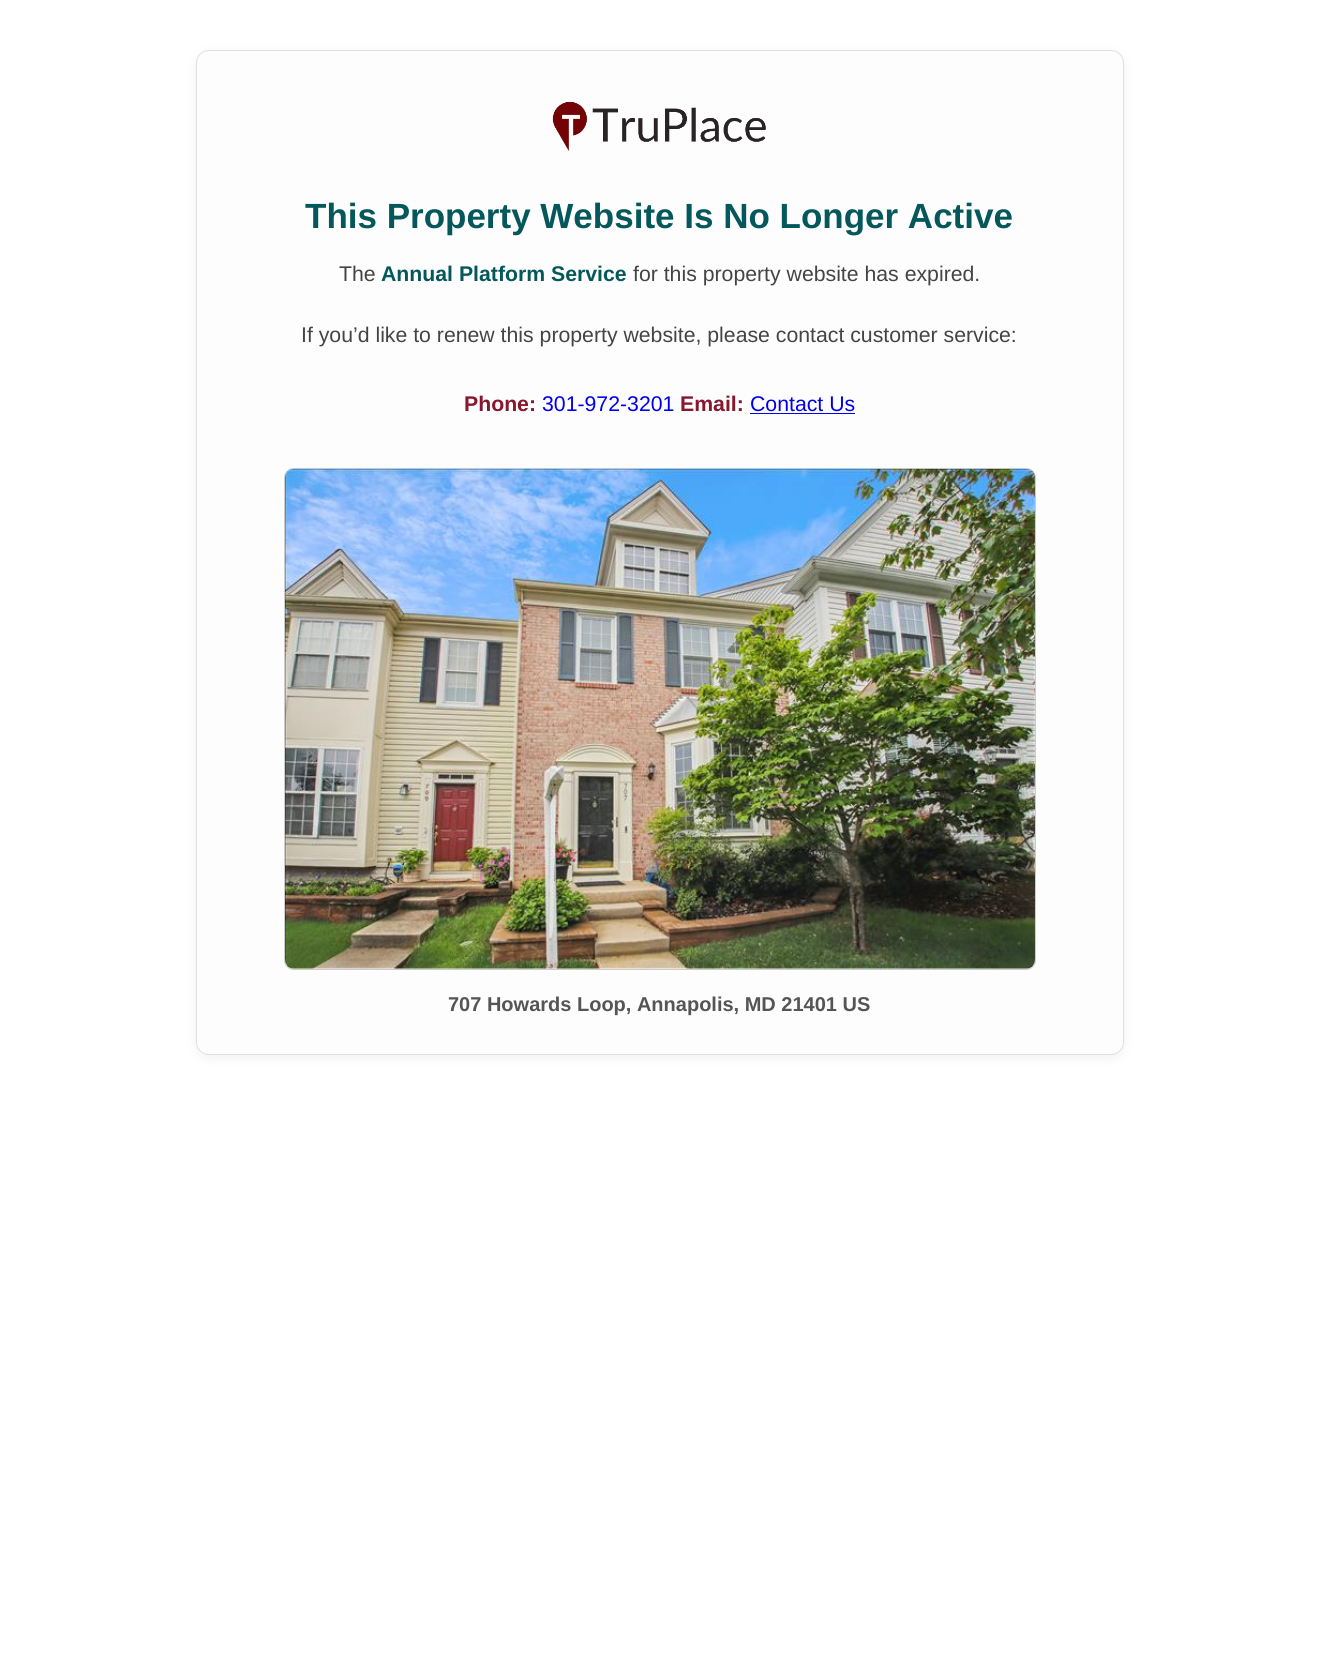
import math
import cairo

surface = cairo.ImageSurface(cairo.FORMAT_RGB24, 1318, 1679)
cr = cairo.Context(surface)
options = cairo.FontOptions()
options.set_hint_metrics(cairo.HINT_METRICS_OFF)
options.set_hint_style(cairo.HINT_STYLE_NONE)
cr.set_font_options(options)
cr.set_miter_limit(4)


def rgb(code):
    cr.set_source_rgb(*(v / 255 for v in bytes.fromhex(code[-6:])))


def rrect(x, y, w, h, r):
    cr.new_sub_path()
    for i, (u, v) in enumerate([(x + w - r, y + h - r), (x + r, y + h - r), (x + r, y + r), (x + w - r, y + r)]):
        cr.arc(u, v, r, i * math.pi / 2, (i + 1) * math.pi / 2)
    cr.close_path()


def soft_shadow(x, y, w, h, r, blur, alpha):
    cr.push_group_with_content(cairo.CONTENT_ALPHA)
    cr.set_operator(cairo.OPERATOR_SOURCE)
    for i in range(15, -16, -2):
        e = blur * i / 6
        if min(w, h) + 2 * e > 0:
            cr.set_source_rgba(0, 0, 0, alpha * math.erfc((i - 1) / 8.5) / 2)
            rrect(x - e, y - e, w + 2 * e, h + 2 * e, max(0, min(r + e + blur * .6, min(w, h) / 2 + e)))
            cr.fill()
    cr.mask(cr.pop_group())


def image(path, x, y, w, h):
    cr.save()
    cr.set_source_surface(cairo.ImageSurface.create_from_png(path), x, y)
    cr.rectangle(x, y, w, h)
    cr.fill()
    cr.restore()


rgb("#ffffff")
cr.paint()
rgb("#000000")
soft_shadow(196, 53, 928, 1005, 13, 6, 0.06)
rgb("#fdfdfd")
rrect(196.5, 50.5, 927, 1004, 12.5)
cr.fill_preserve()
rgb("#e0e0e0")
cr.set_line_width(1)
cr.stroke()
image("img/1.png", 552, 101, 214, 50)
rgb("#0000ee")
cr.rectangle(750, 413, 105, 1)
cr.fill()
rrect(284.5, 468.5, 751, 501, 9.5)
rgb("#cccccc")
cr.stroke()
image("img/2.png", 285, 468, 750, 501)
cr.select_font_face("Liberation Sans", cairo.FONT_SLANT_NORMAL, cairo.FONT_WEIGHT_BOLD)
cr.set_font_size(35)
rgb("#04585c")
cr.move_to(305, 228)
cr.show_text("This Property Website Is No Longer Active")
cr.select_font_face("Liberation Sans")
cr.set_font_size(21.25)
rgb("#444444")
cr.move_to(339, 281)
cr.show_text("The")
cr.select_font_face("Liberation Sans", cairo.FONT_SLANT_NORMAL, cairo.FONT_WEIGHT_BOLD)
rgb("#04585c")
cr.move_to(381, 281)
cr.show_text("Annual Platform Service")
cr.select_font_face("Liberation Sans")
rgb("#444444")
cr.move_to(633, 281)
cr.show_text("for this property website has expired.")
cr.move_to(301, 342)
cr.show_text("If you’d like to renew this property website, please contact customer service:")
cr.select_font_face("Liberation Sans", cairo.FONT_SLANT_NORMAL, cairo.FONT_WEIGHT_BOLD)
rgb("#87162e")
cr.move_to(464, 411)
cr.show_text("Phone:")
cr.select_font_face("Liberation Sans")
rgb("#0000ee")
cr.move_to(542, 411)
cr.show_text("301-972-3201")
cr.select_font_face("Liberation Sans", cairo.FONT_SLANT_NORMAL, cairo.FONT_WEIGHT_BOLD)
rgb("#87162e")
cr.move_to(680, 411)
cr.show_text("Email:")
cr.select_font_face("Liberation Sans")
rgb("#0000ee")
cr.move_to(750, 411)
cr.show_text("Contact Us")
cr.select_font_face("Liberation Sans", cairo.FONT_SLANT_NORMAL, cairo.FONT_WEIGHT_BOLD)
cr.set_font_size(20)
rgb("#555555")
cr.move_to(448, 1011)
cr.show_text("707 Howards Loop, Annapolis, MD 21401 US")
surface.write_to_png("page.png")
